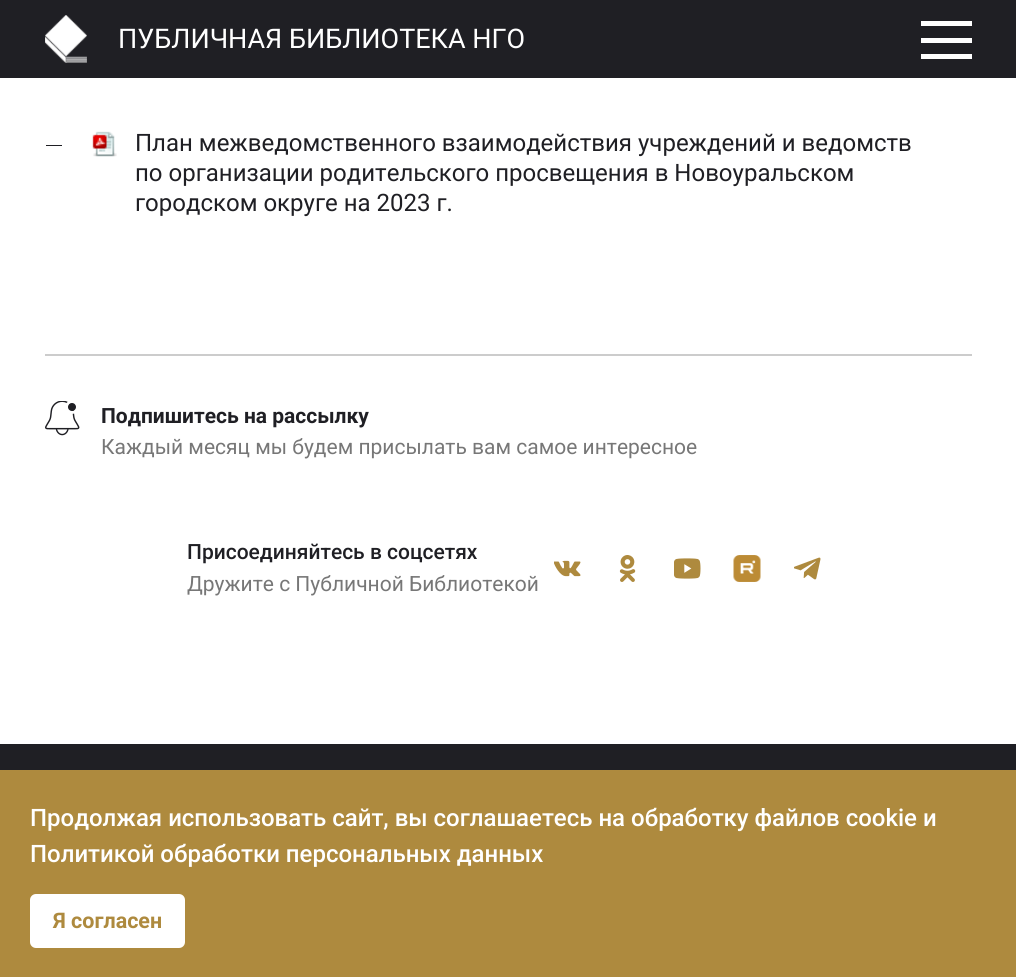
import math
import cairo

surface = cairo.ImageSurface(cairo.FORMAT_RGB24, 1016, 977)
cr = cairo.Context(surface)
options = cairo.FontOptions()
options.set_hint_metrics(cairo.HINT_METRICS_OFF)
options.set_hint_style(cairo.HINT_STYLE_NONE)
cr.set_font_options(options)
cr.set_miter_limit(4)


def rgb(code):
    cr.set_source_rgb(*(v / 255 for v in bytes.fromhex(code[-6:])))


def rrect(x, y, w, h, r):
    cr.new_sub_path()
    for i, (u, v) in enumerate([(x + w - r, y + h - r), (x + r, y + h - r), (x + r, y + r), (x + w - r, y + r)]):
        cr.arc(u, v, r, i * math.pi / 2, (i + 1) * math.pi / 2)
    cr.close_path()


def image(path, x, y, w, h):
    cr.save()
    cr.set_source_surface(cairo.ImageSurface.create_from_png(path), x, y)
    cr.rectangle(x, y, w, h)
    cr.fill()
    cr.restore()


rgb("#ffffff")
cr.paint()
rgb("#1f1f24")
cr.rectangle(0, 0, 1016, 78)
cr.fill()
image("img/1.png", 45, 15, 42, 48)
for x, y, w, h, color in [
    (921, 21, 51, 5, "#ffffff"),
    (921, 38, 51, 5, "#ffffff"),
    (921, 54, 51, 5, "#ffffff"),
    (46, 145, 16, 1, "#1f1f24"),
]:
    rgb(color)
    cr.rectangle(x, y, w, h)
    cr.fill()
image("img/2.png", 92, 131, 25, 26)
rgb("#cccccc")
cr.rectangle(45, 354, 927, 2)
cr.fill()
image("img/3.png", 45, 401, 35, 35)
image("img/4.png", 554, 560, 27, 17)
image("img/5.png", 619, 555, 17, 27)
image("img/6.png", 674, 558, 27, 21)
image("img/7.png", 733, 555, 28, 27)
image("img/8.png", 794, 557, 27, 23)
rgb("#1f1f24")
cr.rectangle(0, 744, 1016, 26)
cr.fill()
rgb("#ae8a3e")
cr.rectangle(0, 770, 1016, 207)
cr.fill()
rgb("#ffffff")
rrect(30, 894, 155, 54, 6)
cr.fill()
cr.select_font_face("Roboto")
cr.set_font_size(27)
cr.move_to(118, 48)
cr.show_text("ПУБЛИЧНАЯ БИБЛИОТЕКА НГО")
cr.set_font_size(24)
rgb("#1f1f24")
for x, y, s in [
    (135, 151, "План межведомственного взаимодействия учреждений и ведомств"),
    (135, 181, "по организации родительского просвещения в Новоуральском"),
    (135, 211, "городском округе на 2023 г."),
]:
    cr.move_to(x, y)
    cr.show_text(s)
cr.select_font_face("Roboto", cairo.FONT_SLANT_NORMAL, cairo.FONT_WEIGHT_BOLD)
cr.set_font_size(21)
cr.move_to(101, 423)
cr.show_text("Подпишитесь на рассылку")
cr.select_font_face("Roboto")
rgb("#777777")
cr.move_to(101, 454)
cr.show_text("Каждый месяц мы будем присылать вам самое интересное")
cr.select_font_face("Roboto Medium")
rgb("#1f1f24")
cr.move_to(187, 559)
cr.show_text("Присоединяйтесь в соцсетях")
cr.select_font_face("Roboto")
rgb("#777777")
cr.move_to(187, 591)
cr.show_text("Дружите с Публичной Библиотекой")
cr.select_font_face("Roboto Medium")
cr.set_font_size(24)
rgb("#ffffff")
cr.move_to(30, 826)
cr.show_text("Продолжая использовать сайт, вы соглашаетесь на обработку файлов cookie и")
cr.move_to(30, 862)
cr.show_text("Политикой обработки персональных данных")
cr.select_font_face("Roboto", cairo.FONT_SLANT_NORMAL, cairo.FONT_WEIGHT_BOLD)
cr.set_font_size(21.5)
rgb("#ae8a3e")
cr.move_to(53, 928)
cr.show_text("Я согласен")
surface.write_to_png("page.png")
